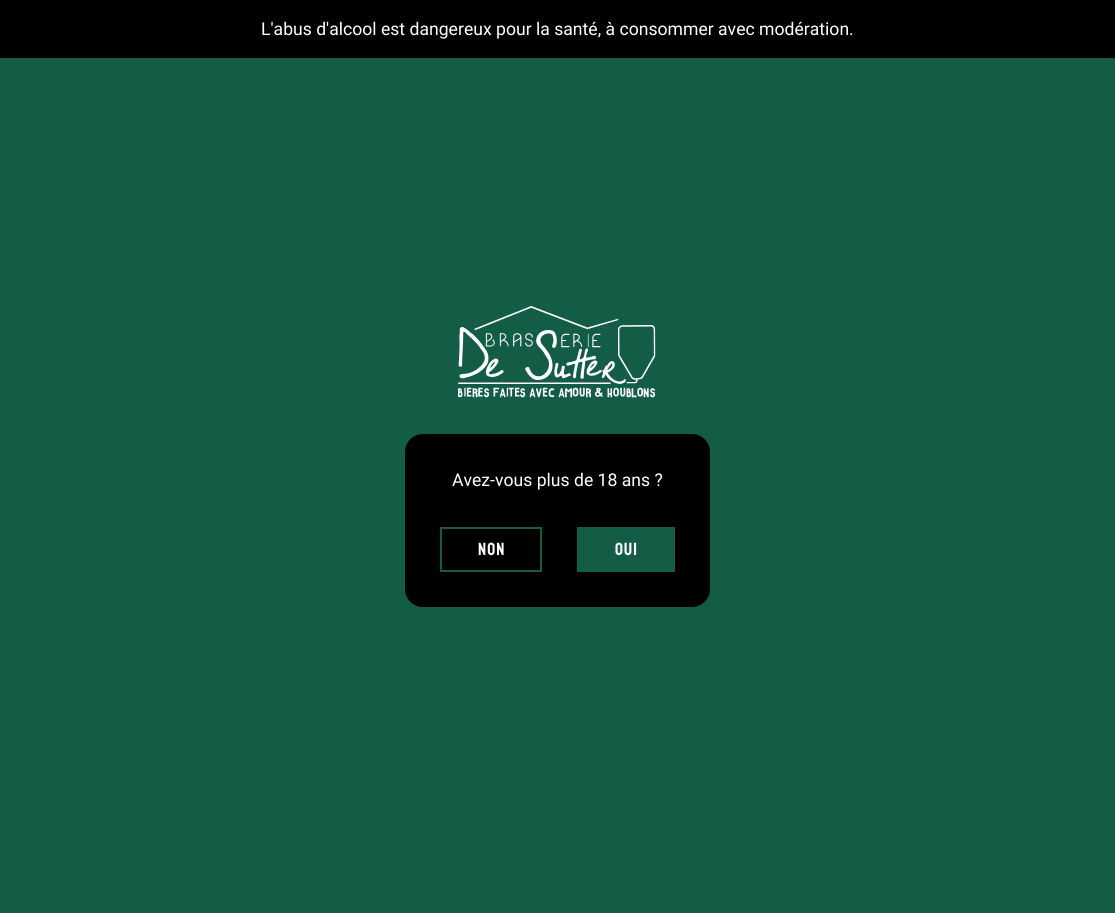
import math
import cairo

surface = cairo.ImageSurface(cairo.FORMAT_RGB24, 1115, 913)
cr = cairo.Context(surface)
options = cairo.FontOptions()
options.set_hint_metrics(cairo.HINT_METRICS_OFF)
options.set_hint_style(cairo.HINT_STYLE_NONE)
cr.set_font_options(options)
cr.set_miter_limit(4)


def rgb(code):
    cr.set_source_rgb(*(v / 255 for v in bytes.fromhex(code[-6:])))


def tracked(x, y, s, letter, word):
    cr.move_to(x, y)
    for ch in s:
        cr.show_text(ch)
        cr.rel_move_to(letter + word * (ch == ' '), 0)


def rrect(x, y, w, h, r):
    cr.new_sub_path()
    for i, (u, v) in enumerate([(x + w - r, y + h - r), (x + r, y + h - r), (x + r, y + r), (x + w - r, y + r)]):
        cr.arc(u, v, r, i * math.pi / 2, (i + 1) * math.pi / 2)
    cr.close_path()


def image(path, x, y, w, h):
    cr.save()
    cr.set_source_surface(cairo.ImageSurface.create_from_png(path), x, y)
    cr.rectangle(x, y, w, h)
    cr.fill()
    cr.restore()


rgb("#135c46")
cr.paint()
rgb("#000000")
cr.rectangle(0, 0, 1115, 58)
cr.fill()
image("img/1.png", 458, 306, 198, 92)
rrect(405, 434, 305, 173, 18)
cr.fill()
cr.rectangle(441, 528, 100, 43)
rgb("#135c46")
cr.stroke()
cr.rectangle(577, 527, 98, 45)
cr.fill()
cr.select_font_face("Roboto")
cr.set_font_size(17.6)
rgb("#ffffff")
cr.move_to(261, 35)
cr.show_text("L'abus d'alcool est dangereux pour la santé, à consommer avec modération.")
cr.move_to(452, 486)
cr.show_text("Avez-vous plus de 18 ans ?")
cr.select_font_face("Staatliches")
tracked(478, 555, "Non", 1, 0)
tracked(615, 555, "Oui", 1, 0)
surface.write_to_png("page.png")
